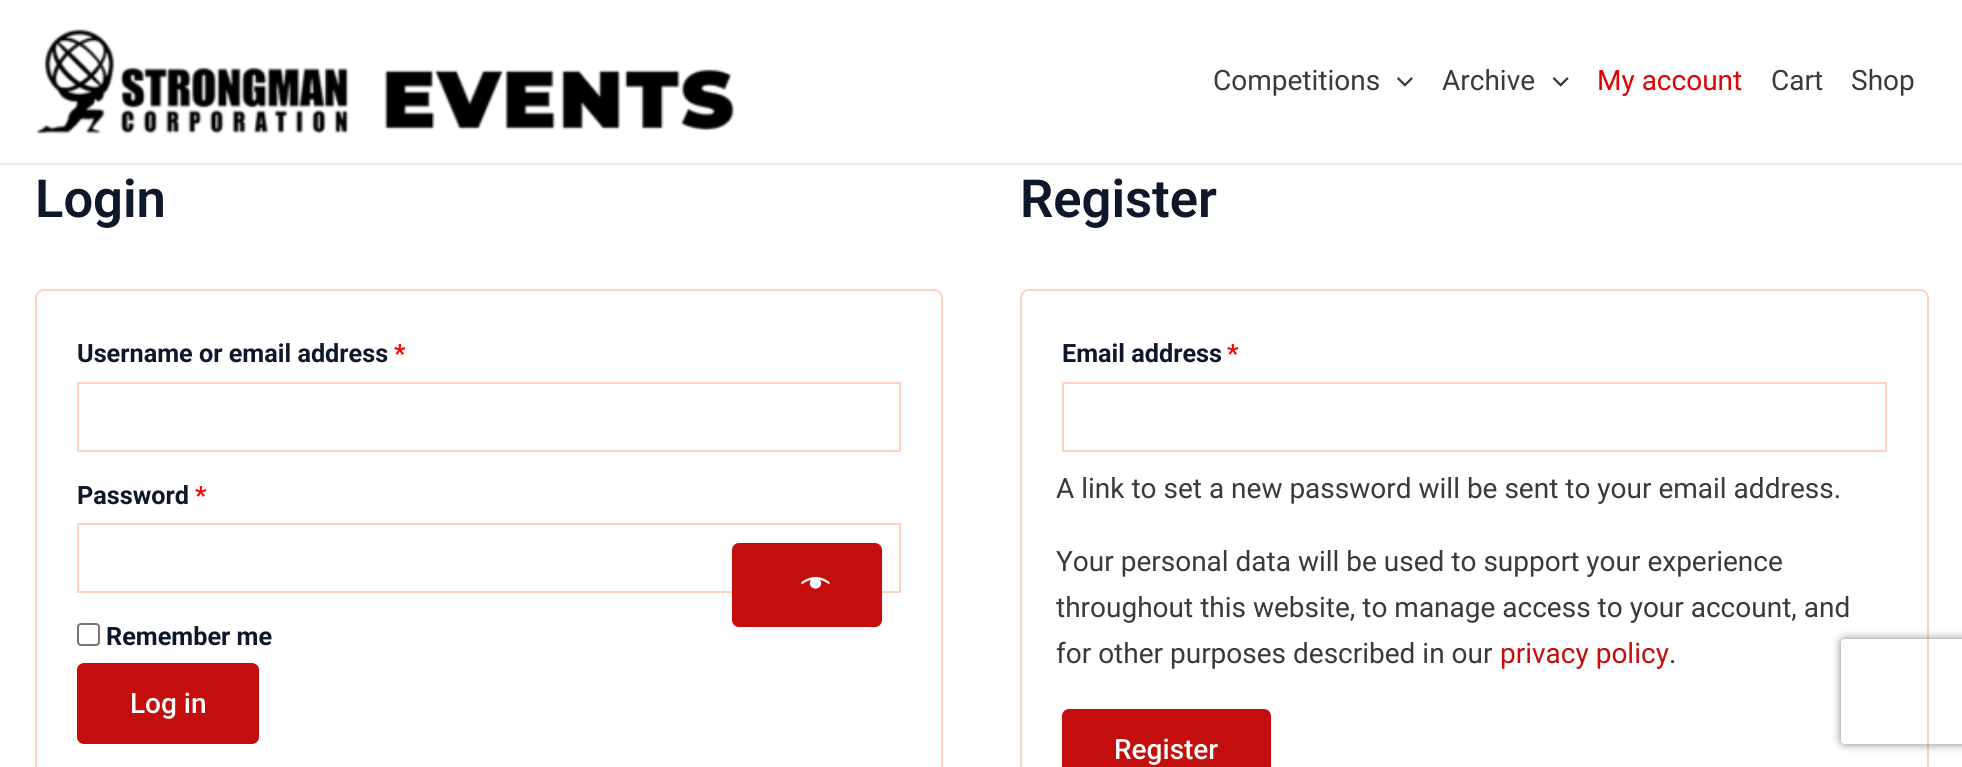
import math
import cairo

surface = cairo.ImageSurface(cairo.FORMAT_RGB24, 1962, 767)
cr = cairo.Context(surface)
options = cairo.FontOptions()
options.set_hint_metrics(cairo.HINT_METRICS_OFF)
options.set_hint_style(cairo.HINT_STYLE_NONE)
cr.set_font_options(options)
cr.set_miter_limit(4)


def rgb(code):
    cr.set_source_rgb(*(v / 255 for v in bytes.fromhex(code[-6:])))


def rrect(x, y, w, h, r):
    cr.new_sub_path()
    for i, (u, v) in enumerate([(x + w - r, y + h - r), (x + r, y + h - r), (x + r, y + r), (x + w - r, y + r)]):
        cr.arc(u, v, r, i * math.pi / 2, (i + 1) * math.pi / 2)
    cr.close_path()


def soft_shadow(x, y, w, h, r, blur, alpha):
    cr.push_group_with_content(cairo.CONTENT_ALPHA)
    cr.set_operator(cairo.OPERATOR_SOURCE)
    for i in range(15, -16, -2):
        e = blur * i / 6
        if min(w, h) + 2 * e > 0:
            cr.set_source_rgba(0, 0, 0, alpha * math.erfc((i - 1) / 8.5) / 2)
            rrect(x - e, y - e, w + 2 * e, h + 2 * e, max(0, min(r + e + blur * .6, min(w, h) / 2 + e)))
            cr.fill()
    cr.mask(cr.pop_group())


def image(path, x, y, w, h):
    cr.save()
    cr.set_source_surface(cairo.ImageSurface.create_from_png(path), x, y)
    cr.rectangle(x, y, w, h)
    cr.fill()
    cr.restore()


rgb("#ffffff")
cr.paint()
rgb("#eaeaea")
cr.rectangle(0, 163, 1962, 2)
cr.fill()
image("img/1.png", 36, 29, 698, 105)
image("img/2.png", 1397, 77, 16, 10)
image("img/3.png", 1552, 77, 17, 10)
rrect(36, 290, 906, 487, 8)
rgb("#ffd1bf")
cr.stroke()
cr.rectangle(78, 383, 822, 68)
cr.stroke()
cr.rectangle(78, 524, 822, 68)
cr.stroke()
rgb("#000000")
soft_shadow(732, 544, 150, 84, 7, 2, 0.05)
rgb("#c40e0e")
rrect(732, 543, 150, 84, 7)
cr.fill()
image("img/4.png", 801, 576, 29, 13)
rrect(78, 624, 21, 21, 3)
rgb("#767676")
cr.stroke()
rgb("#c40e0e")
rrect(77, 663, 182, 81, 7)
cr.fill()
rrect(1021, 290, 907, 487, 8)
rgb("#ffd1bf")
cr.stroke()
cr.rectangle(1063, 383, 823, 68)
cr.stroke()
rgb("#c40e0e")
rrect(1062, 709, 209, 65, 7)
cr.fill()
cr.save()
cr.set_fill_rule(cairo.FILL_RULE_EVEN_ODD)
cr.new_path()
cr.move_to(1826, 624)
cr.line_to(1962, 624)
cr.line_to(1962, 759)
cr.line_to(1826, 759)
cr.close_path()
cr.move_to(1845, 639)
cr.line_to(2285, 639)
cr.curve_to(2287, 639, 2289, 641, 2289, 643)
cr.line_to(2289, 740)
cr.curve_to(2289, 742, 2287, 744, 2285, 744)
cr.line_to(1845, 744)
cr.curve_to(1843, 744, 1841, 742, 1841, 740)
cr.line_to(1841, 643)
cr.curve_to(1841, 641, 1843, 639, 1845, 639)
cr.close_path()
cr.clip()
rgb("#808080")
soft_shadow(1841, 639, 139, 105, 4, 4.5, 1)
cr.restore()
cr.select_font_face("Roboto")
cr.set_font_size(28)
rgb("#3a3a3a")
cr.move_to(1213, 90)
cr.show_text("Competitions")
cr.move_to(1442, 90)
cr.show_text("Archive")
rgb("#e10004")
cr.move_to(1597, 90)
cr.show_text("My account")
rgb("#3a3a3a")
cr.move_to(1771, 90)
cr.show_text("Cart")
cr.move_to(1851, 90)
cr.show_text("Shop")
cr.select_font_face("Roboto SemiBold")
cr.set_font_size(52.5)
rgb("#0f172a")
cr.move_to(35, 217)
cr.show_text("Login")
cr.select_font_face("Roboto", cairo.FONT_SLANT_NORMAL, cairo.FONT_WEIGHT_BOLD)
cr.set_font_size(25.25)
cr.move_to(77, 362)
cr.show_text("Username or email address")
rgb("#ff0000")
cr.move_to(394, 362)
cr.show_text("*")
rgb("#0f172a")
cr.move_to(77, 504)
cr.show_text("Password")
rgb("#ff0000")
cr.move_to(195, 504)
cr.show_text("*")
rgb("#0f172a")
cr.move_to(106, 645)
cr.show_text("Remember me")
cr.select_font_face("Roboto Medium")
cr.set_font_size(28)
rgb("#ffffff")
cr.move_to(130, 713)
cr.show_text("Log in")
cr.select_font_face("Roboto SemiBold")
cr.set_font_size(52.5)
rgb("#0f172a")
cr.move_to(1020, 217)
cr.show_text("Register")
cr.select_font_face("Roboto", cairo.FONT_SLANT_NORMAL, cairo.FONT_WEIGHT_BOLD)
cr.set_font_size(25.25)
cr.move_to(1062, 362)
cr.show_text("Email address")
rgb("#ff0000")
cr.move_to(1227, 362)
cr.show_text("*")
cr.select_font_face("Roboto")
cr.set_font_size(28)
rgb("#3a3a3a")
for x, y, s in [
    (1056, 498, "A link to set a new password will be sent to your email address."),
    (1056, 571, "Your personal data will be used to support your experience"),
    (1056, 617, "throughout this website, to manage access to your account, and"),
    (1056, 663, "for other purposes described in our"),
]:
    cr.move_to(x, y)
    cr.show_text(s)
rgb("#c40e0e")
cr.move_to(1500, 663)
cr.show_text("privacy policy")
rgb("#3a3a3a")
cr.move_to(1669, 663)
cr.show_text(".")
cr.select_font_face("Roboto Medium")
rgb("#ffffff")
cr.move_to(1114, 759)
cr.show_text("Register")
surface.write_to_png("page.png")
